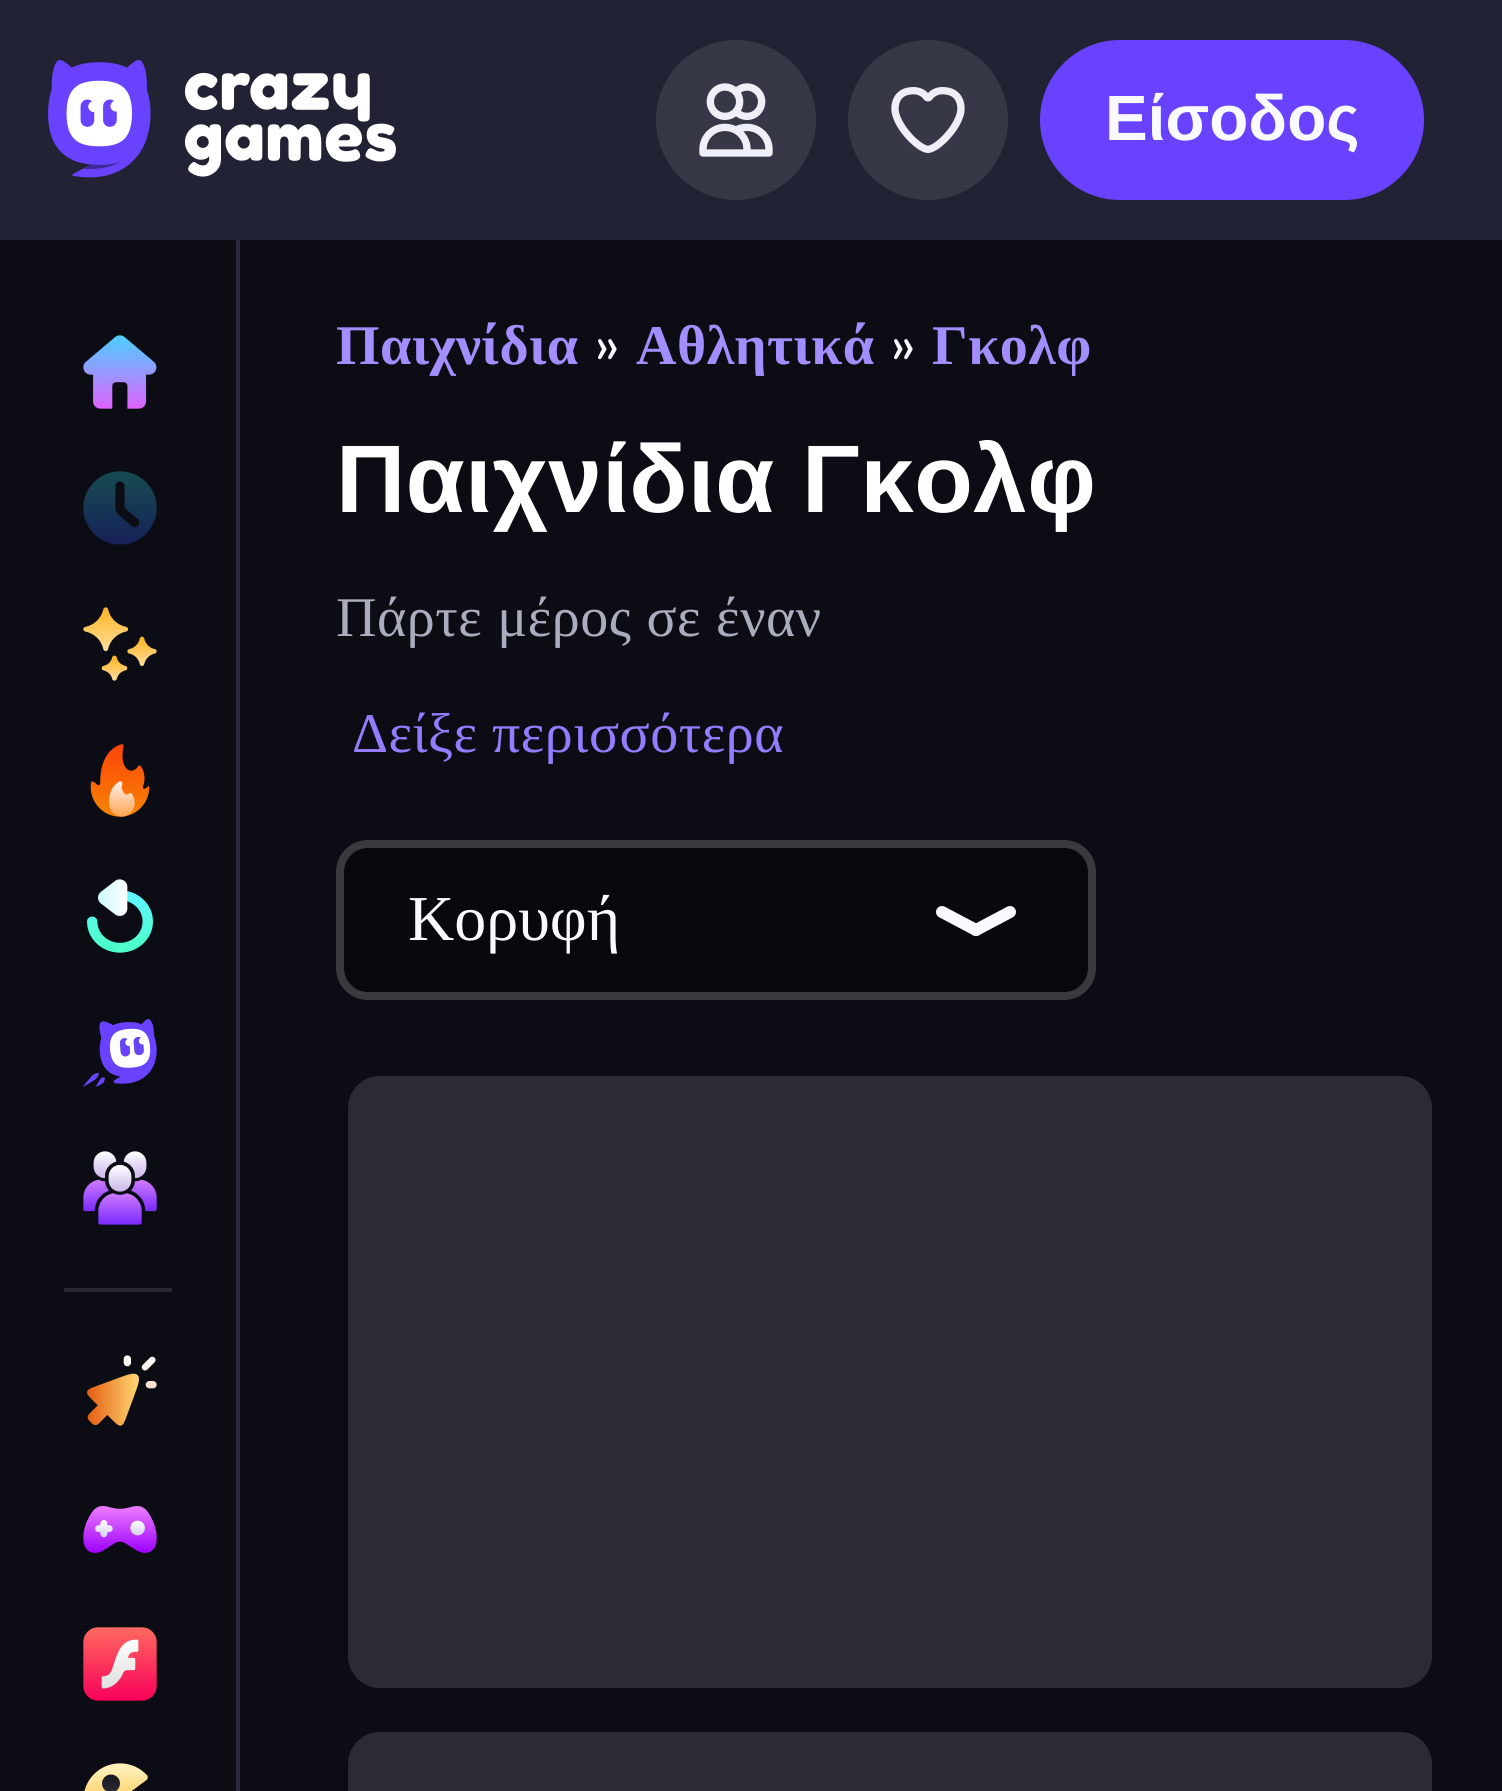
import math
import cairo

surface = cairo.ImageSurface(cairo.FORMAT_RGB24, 1502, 1791)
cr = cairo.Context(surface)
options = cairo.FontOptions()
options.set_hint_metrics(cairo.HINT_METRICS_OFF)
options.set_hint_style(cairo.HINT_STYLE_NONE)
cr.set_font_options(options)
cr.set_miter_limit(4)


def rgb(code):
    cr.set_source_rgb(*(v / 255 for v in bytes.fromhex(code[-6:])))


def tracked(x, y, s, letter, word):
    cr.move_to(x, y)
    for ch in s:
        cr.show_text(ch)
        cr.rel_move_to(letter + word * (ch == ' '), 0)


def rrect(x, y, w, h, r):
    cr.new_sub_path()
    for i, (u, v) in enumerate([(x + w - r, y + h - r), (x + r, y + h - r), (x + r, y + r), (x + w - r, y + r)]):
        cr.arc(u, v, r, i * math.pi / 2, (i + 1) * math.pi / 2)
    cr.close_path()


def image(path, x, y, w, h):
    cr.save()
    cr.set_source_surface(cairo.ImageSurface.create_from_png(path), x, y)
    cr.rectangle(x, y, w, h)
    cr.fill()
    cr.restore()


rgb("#0c0d14")
cr.paint()
rgb("#212233")
cr.rectangle(0, 0, 1502, 240)
cr.fill()
image("img/1.png", 48, 60, 103, 118)
image("img/2.png", 185, 72, 211, 105)
rgb("#373847")
cr.arc(736, 120, 80, 0, 2 * math.pi)
cr.fill()
image("img/3.png", 699, 83, 74, 74)
cr.arc(928, 120, 80, 0, 2 * math.pi)
cr.fill()
image("img/4.png", 891, 87, 74, 66)
rgb("#6842ff")
rrect(1040, 40, 384, 160, 80)
cr.fill()
rgb("#28293d")
cr.rectangle(236, 240, 4, 1551)
cr.fill()
image("img/5.png", 83, 335, 74, 74)
image("img/6.png", 83, 471, 74, 74)
image("img/7.png", 83, 607, 74, 74)
image("img/8.png", 90, 744, 60, 73)
image("img/9.png", 87, 879, 66, 74)
image("img/10.png", 83, 1019, 74, 68)
image("img/11.png", 83, 1151, 74, 74)
rgb("#292a30")
cr.rectangle(64, 1288, 108, 4)
cr.fill()
image("img/12.png", 87, 1355, 70, 71)
image("img/13.png", 83, 1506, 74, 47)
image("img/14.png", 83, 1627, 74, 74)
image("img/15.png", 84, 1763, 64, 28)
rgb("#08090e")
rrect(336, 840, 760, 160, 32)
cr.fill()
rrect(340, 844, 752, 152, 28)
cr.set_source_rgba(1, 1, 1, 0.2)
cr.set_line_width(8)
cr.stroke()
image("img/16.png", 936, 906, 80, 30)
rgb("#2b2c33")
rrect(348, 1076, 1084, 612, 32)
cr.fill()
rrect(348, 1732, 1084, 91, 32)
cr.fill()
cr.select_font_face("Liberation Sans", cairo.FONT_SLANT_NORMAL, cairo.FONT_WEIGHT_BOLD)
cr.set_font_size(64)
rgb("#f9faff")
cr.move_to(1105, 140)
cr.show_text("Είσοδος")
cr.select_font_face("Liberation Serif", cairo.FONT_SLANT_NORMAL, cairo.FONT_WEIGHT_BOLD)
cr.set_font_size(56)
rgb("#a48eff")
tracked(336, 364, "Παιχνίδια", 0.5, 0)
cr.select_font_face("Nunito")
rgb("#f9faff")
tracked(595, 364, "»", 0.5, 0)
cr.select_font_face("Liberation Serif", cairo.FONT_SLANT_NORMAL, cairo.FONT_WEIGHT_BOLD)
rgb("#a48eff")
tracked(636, 364, "Αθλητικά", 0.5, 0)
cr.select_font_face("Nunito")
rgb("#f9faff")
tracked(891, 364, "»", 0.5, 0)
cr.select_font_face("Liberation Serif", cairo.FONT_SLANT_NORMAL, cairo.FONT_WEIGHT_BOLD)
rgb("#a48eff")
tracked(932, 364, "Γκολφ", 0.5, 0)
cr.select_font_face("Liberation Sans", cairo.FONT_SLANT_NORMAL, cairo.FONT_WEIGHT_BOLD)
cr.set_font_size(96)
rgb("#ffffff")
tracked(336, 512, "Παιχνίδια Γκολφ", 0.5, 0)
cr.select_font_face("Liberation Serif")
cr.set_font_size(56)
rgb("#aaadbe")
tracked(336, 636, "Πάρτε μέρος σε έναν", 0.5, 0.5)
rgb("#957bff")
tracked(352, 752, "Δείξε περισσότερα", 0.5, 0)
cr.set_font_size(64)
rgb("#f9faff")
cr.move_to(408, 940)
cr.show_text("Κορυφή")
surface.write_to_png("page.png")
